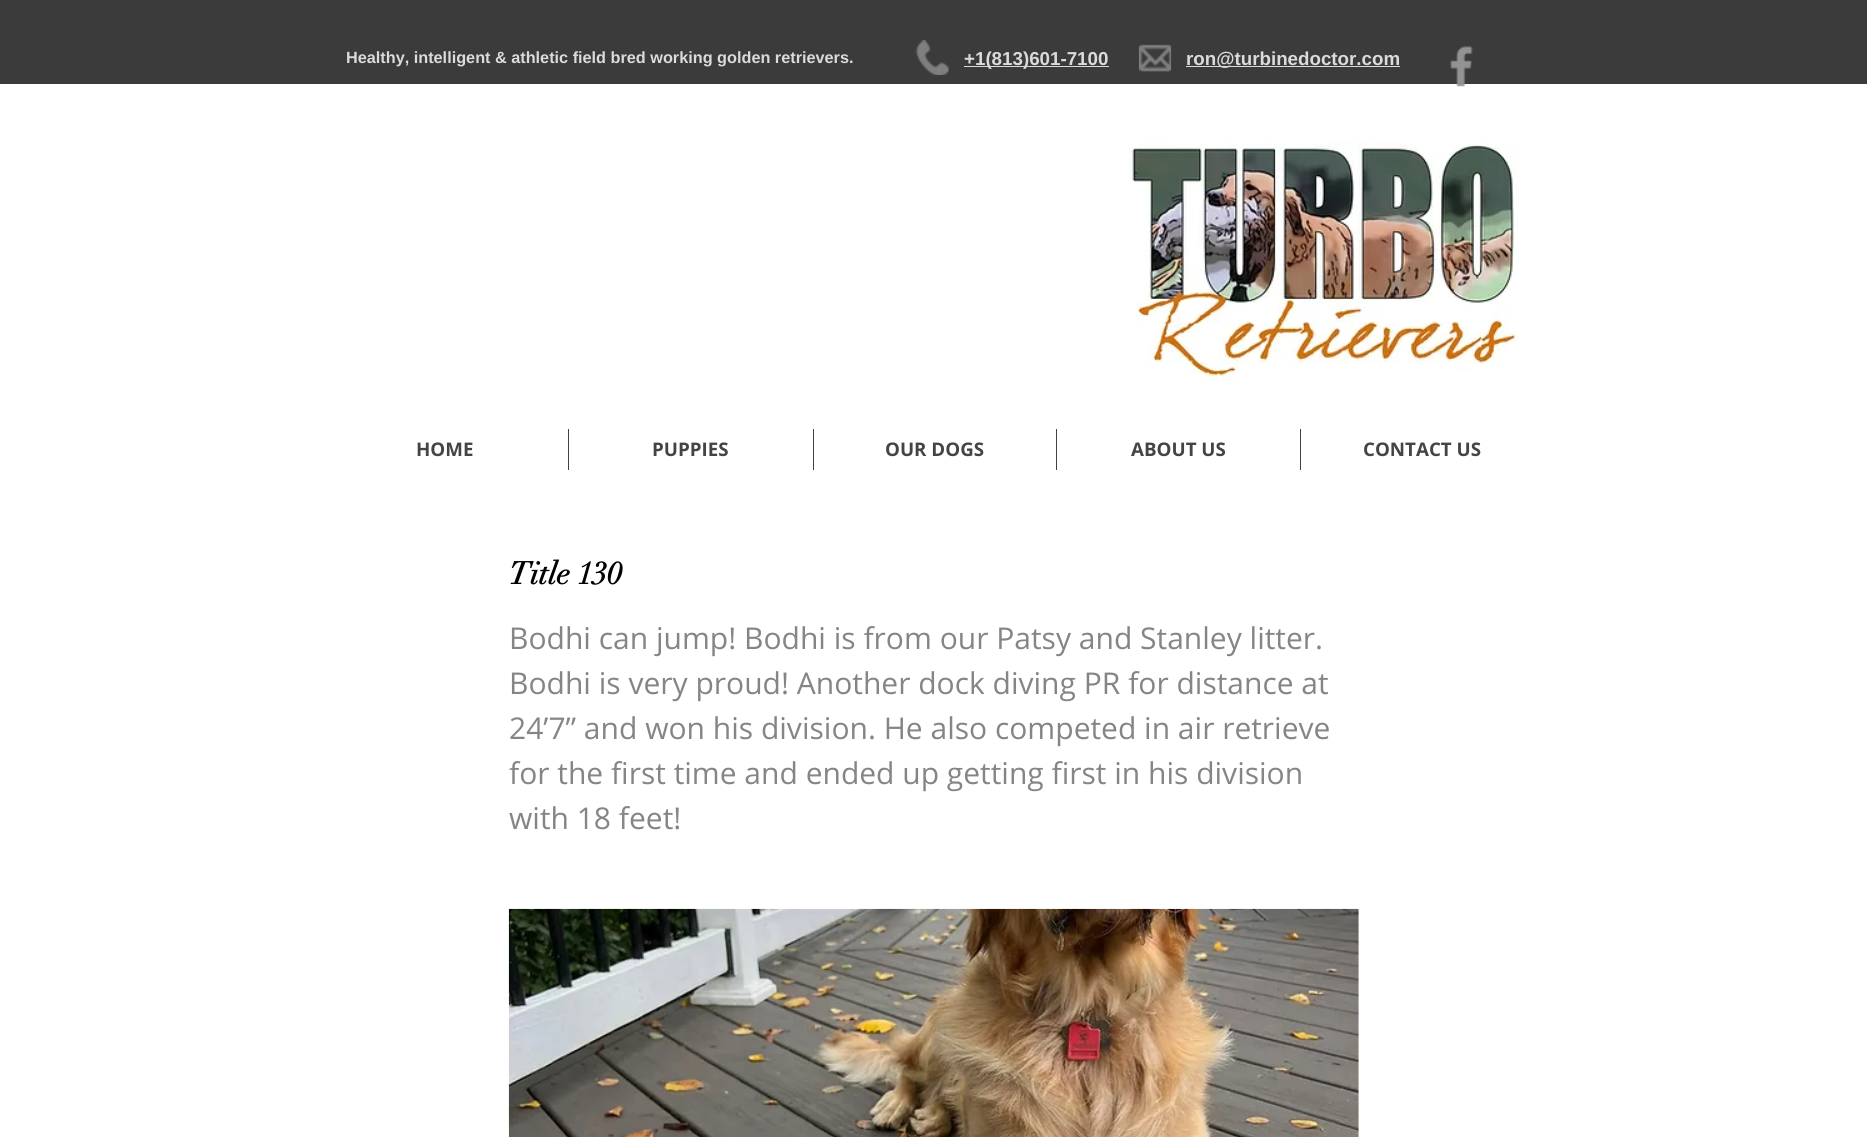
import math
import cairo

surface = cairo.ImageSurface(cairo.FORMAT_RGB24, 1867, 1137)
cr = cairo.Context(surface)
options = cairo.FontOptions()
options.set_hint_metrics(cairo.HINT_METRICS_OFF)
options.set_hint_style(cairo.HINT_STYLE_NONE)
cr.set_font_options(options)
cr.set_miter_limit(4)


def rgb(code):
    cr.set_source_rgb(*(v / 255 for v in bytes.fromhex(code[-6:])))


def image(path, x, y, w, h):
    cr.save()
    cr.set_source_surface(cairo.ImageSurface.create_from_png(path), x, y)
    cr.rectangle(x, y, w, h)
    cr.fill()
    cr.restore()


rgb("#ffffff")
cr.paint()
rgb("#3b3b3b")
cr.rectangle(0, 0, 1867, 84)
cr.fill()
image("img/1.png", 915, 40, 34, 35)
rgb("#dbdbdb")
cr.rectangle(964, 66, 145, 1)
cr.fill()
image("img/2.png", 1138, 44, 34, 28)
cr.rectangle(1186, 66, 214, 1)
cr.fill()
image("img/3.png", 1450, 46, 23, 41)
image("img/4.png", 1129, 143, 390, 238)
for x, y, w, h, color in [
    (568, 429, 1, 41, "#414141"),
    (813, 429, 1, 41, "#414141"),
    (1056, 429, 1, 41, "#414141"),
    (1300, 429, 1, 41, "#414141"),
]:
    rgb(color)
    cr.rectangle(x, y, w, h)
    cr.fill()
image("img/5.png", 508, 908, 851, 229)
cr.select_font_face("Liberation Sans", cairo.FONT_SLANT_NORMAL, cairo.FONT_WEIGHT_BOLD)
cr.set_font_size(16.25)
rgb("#dbdbdb")
cr.move_to(346, 63)
cr.show_text("Healthy, intelligent & athletic field bred working golden retrievers.")
cr.set_font_size(18.75)
cr.move_to(964, 65)
cr.show_text("+1(813)601-7100")
cr.move_to(1186, 65)
cr.show_text("ron@turbinedoctor.com")
cr.select_font_face("Open Sans", cairo.FONT_SLANT_NORMAL, cairo.FONT_WEIGHT_BOLD)
rgb("#444444")
for x, y, s in [
    (416, 456, "HOME"),
    (652, 456, "PUPPIES"),
    (885, 456, "OUR DOGS"),
    (1131, 456, "ABOUT US"),
    (1363, 456, "CONTACT US"),
]:
    cr.move_to(x, y)
    cr.show_text(s)
cr.select_font_face("didot", cairo.FONT_SLANT_NORMAL, cairo.FONT_WEIGHT_BOLD)
cr.set_font_size(31)
rgb("#000000")
cr.move_to(509, 584)
cr.show_text("Title 130")
cr.select_font_face("Open Sans")
cr.set_font_size(30)
rgb("#858585")
for x, y, s in [
    (509, 649, "Bodhi can jump! Bodhi is from our Patsy and Stanley litter."),
    (509, 694, "Bodhi is very proud! Another dock diving PR for distance at"),
    (509, 739, "24’7” and won his division. He also competed in air retrieve"),
    (509, 784, "for the first time and ended up getting first in his division"),
    (509, 829, "with 18 feet!"),
]:
    cr.move_to(x, y)
    cr.show_text(s)
surface.write_to_png("page.png")
